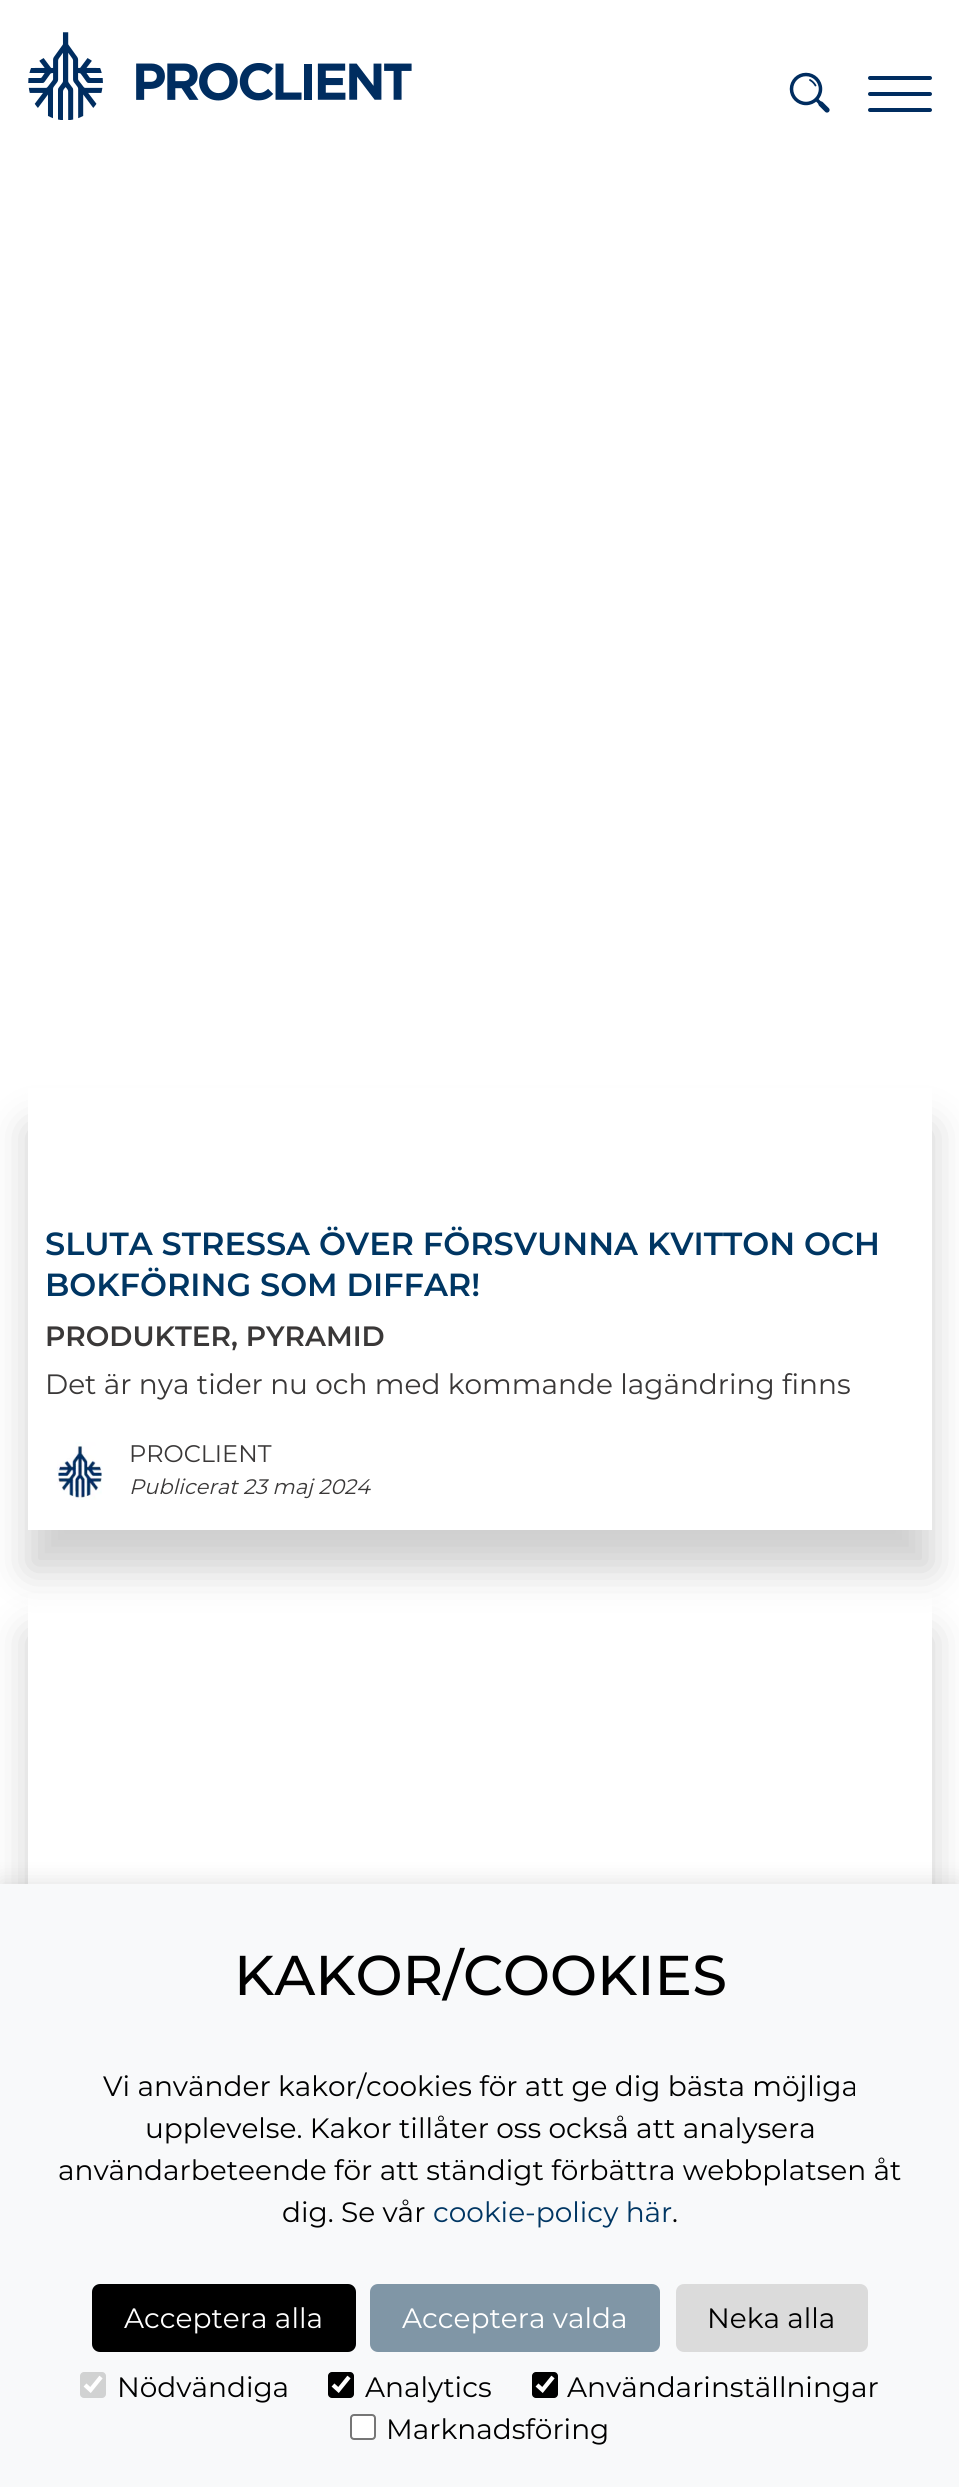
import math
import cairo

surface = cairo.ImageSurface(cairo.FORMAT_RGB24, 959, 2487)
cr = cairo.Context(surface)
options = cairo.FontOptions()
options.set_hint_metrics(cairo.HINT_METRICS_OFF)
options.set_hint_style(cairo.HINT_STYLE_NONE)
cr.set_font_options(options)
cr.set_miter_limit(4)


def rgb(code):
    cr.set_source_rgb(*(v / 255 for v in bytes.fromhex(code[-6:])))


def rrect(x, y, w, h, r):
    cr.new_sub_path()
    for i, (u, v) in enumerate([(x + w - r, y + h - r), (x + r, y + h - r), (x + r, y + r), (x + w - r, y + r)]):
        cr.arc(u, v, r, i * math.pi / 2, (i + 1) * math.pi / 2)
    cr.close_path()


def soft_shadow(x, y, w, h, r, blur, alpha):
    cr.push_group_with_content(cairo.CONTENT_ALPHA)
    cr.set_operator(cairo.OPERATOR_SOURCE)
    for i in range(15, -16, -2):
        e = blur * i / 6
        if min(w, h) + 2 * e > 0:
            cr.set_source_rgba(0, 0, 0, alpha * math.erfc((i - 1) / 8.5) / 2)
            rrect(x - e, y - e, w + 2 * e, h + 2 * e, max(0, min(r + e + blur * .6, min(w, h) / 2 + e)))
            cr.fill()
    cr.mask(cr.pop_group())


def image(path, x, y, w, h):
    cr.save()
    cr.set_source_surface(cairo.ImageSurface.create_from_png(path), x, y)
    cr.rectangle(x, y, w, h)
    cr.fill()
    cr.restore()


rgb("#ffffff")
cr.paint()
image("img/1.png", 28, 32, 384, 88)
cr.arc(806, 89, 14.5, 0, 2 * math.pi)
rgb("#002d60")
cr.set_line_width(3.5)
cr.stroke()
cr.new_path()
cr.move_to(815.5, 85.5)
cr.curve_to(814, 83, 812.5, 81.5, 810, 80)
cr.set_line_width(1.8)
cr.set_line_cap(cairo.LINE_CAP_ROUND)
cr.stroke()
cr.new_path()
cr.move_to(821, 104)
cr.line_to(827, 110)
cr.set_line_width(5.2)
cr.stroke()
cr.new_path()
cr.move_to(816.5, 99.5)
cr.line_to(827, 110)
cr.set_line_width(3.5)
cr.stroke()
rrect(868, 92, 64, 4, 2)
cr.fill()
rrect(868, 76, 64, 4, 2)
cr.fill()
rrect(868, 108, 64, 4, 2)
cr.fill()
cr.save()
cr.set_fill_rule(cairo.FILL_RULE_EVEN_ODD)
cr.new_path()
cr.move_to(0, 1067)
cr.line_to(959, 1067)
cr.line_to(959, 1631)
cr.line_to(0, 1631)
cr.close_path()
cr.move_to(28, 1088)
cr.line_to(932, 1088)
cr.line_to(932, 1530)
cr.line_to(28, 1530)
cr.close_path()
cr.clip()
rgb("#000000")
soft_shadow(28, 1128, 904, 442, 0, 20, 0.19)
cr.restore()
image("img/2.png", 57, 1442, 45, 58)
cr.save()
cr.set_fill_rule(cairo.FILL_RULE_EVEN_ODD)
cr.new_path()
cr.move_to(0, 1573)
cr.line_to(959, 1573)
cr.line_to(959, 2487)
cr.line_to(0, 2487)
cr.close_path()
cr.move_to(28, 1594)
cr.line_to(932, 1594)
cr.line_to(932, 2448)
cr.line_to(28, 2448)
cr.close_path()
cr.clip()
rgb("#000000")
soft_shadow(28, 1634, 904, 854, 0, 20, 0.19)
cr.restore()
rgb("#000000")
soft_shadow(0, 1880, 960, 604, 0, 10, 0.1)
rgb("#f8f9fa")
cr.rectangle(0, 1884, 959, 603)
cr.fill()
rgb("#000000")
rrect(92, 2284, 264, 68, 8)
cr.fill()
rgb("#8096a6")
rrect(370, 2284, 290, 68, 8)
cr.fill()
rgb("#dbdbdb")
rrect(676, 2284, 192, 68, 8)
cr.fill()
rgb("#d1d2d2")
rrect(80, 2372, 26, 26, 4)
cr.fill()
cr.new_path()
cr.move_to(85, 2385)
cr.line_to(90.5, 2390)
cr.line_to(101, 2377)
rgb("#ffffff")
cr.set_line_width(4.2)
cr.set_line_cap(cairo.LINE_CAP_BUTT)
cr.stroke()
rgb("#000000")
rrect(328, 2372, 26, 26, 4)
cr.fill()
cr.new_path()
cr.move_to(333, 2385)
cr.line_to(338.5, 2390)
cr.line_to(349, 2377)
rgb("#ffffff")
cr.stroke()
rgb("#000000")
rrect(532, 2372, 26, 26, 4)
cr.fill()
cr.new_path()
cr.move_to(537, 2385)
cr.line_to(542.5, 2390)
cr.line_to(553, 2377)
rgb("#ffffff")
cr.stroke()
rrect(351, 2415, 24, 24, 3)
cr.fill_preserve()
rgb("#767676")
cr.set_line_width(2)
cr.stroke()
cr.select_font_face("Montserrat SemiBold")
cr.set_font_size(32)
rgb("#003663")
cr.move_to(45, 1255)
cr.show_text("SLUTA STRESSA ÖVER FÖRSVUNNA KVITTON OCH")
cr.move_to(45, 1296)
cr.show_text("BOKFÖRING SOM DIFFAR!")
cr.set_font_size(28)
rgb("#3a3838")
cr.move_to(45, 1346)
cr.show_text("PRODUKTER, PYRAMID")
cr.select_font_face("Montserrat")
cr.move_to(45, 1394)
cr.show_text("Det är nya tider nu och med kommande lagändring finns")
cr.set_font_size(24)
cr.move_to(129, 1462)
cr.show_text("PROCLIENT")
cr.select_font_face("Montserrat", cairo.FONT_SLANT_ITALIC)
cr.set_font_size(21)
cr.move_to(129, 1494)
cr.show_text("Publicerat 23 maj 2024")
cr.select_font_face("Montserrat Medium")
cr.set_font_size(56)
rgb("#000000")
cr.move_to(234, 1995)
cr.show_text("KAKOR/COOKIES")
cr.select_font_face("Montserrat")
cr.set_font_size(28)
for x, y, s in [
    (103, 2096, "Vi använder kakor/cookies för att ge dig bästa möjliga"),
    (145, 2138, "upplevelse. Kakor tillåter oss också att analysera"),
    (58, 2180, "användarbeteende för att ständigt förbättra webbplatsen åt"),
    (282, 2222, "dig. Se vår"),
]:
    cr.move_to(x, y)
    cr.show_text(s)
rgb("#003663")
cr.move_to(433, 2222)
cr.show_text("cookie-policy här")
rgb("#000000")
cr.move_to(672, 2222)
cr.show_text(".")
rgb("#ffffff")
cr.move_to(124, 2328)
cr.show_text("Acceptera alla")
cr.move_to(402, 2328)
cr.show_text("Acceptera valda")
rgb("#000000")
for x, y, s in [
    (707, 2328, "Neka alla"),
    (117, 2397, "Nödvändiga"),
    (365, 2397, "Analytics"),
    (567, 2397, "Användarinställningar"),
    (386, 2439, "Marknadsföring"),
]:
    cr.move_to(x, y)
    cr.show_text(s)
surface.write_to_png("page.png")
